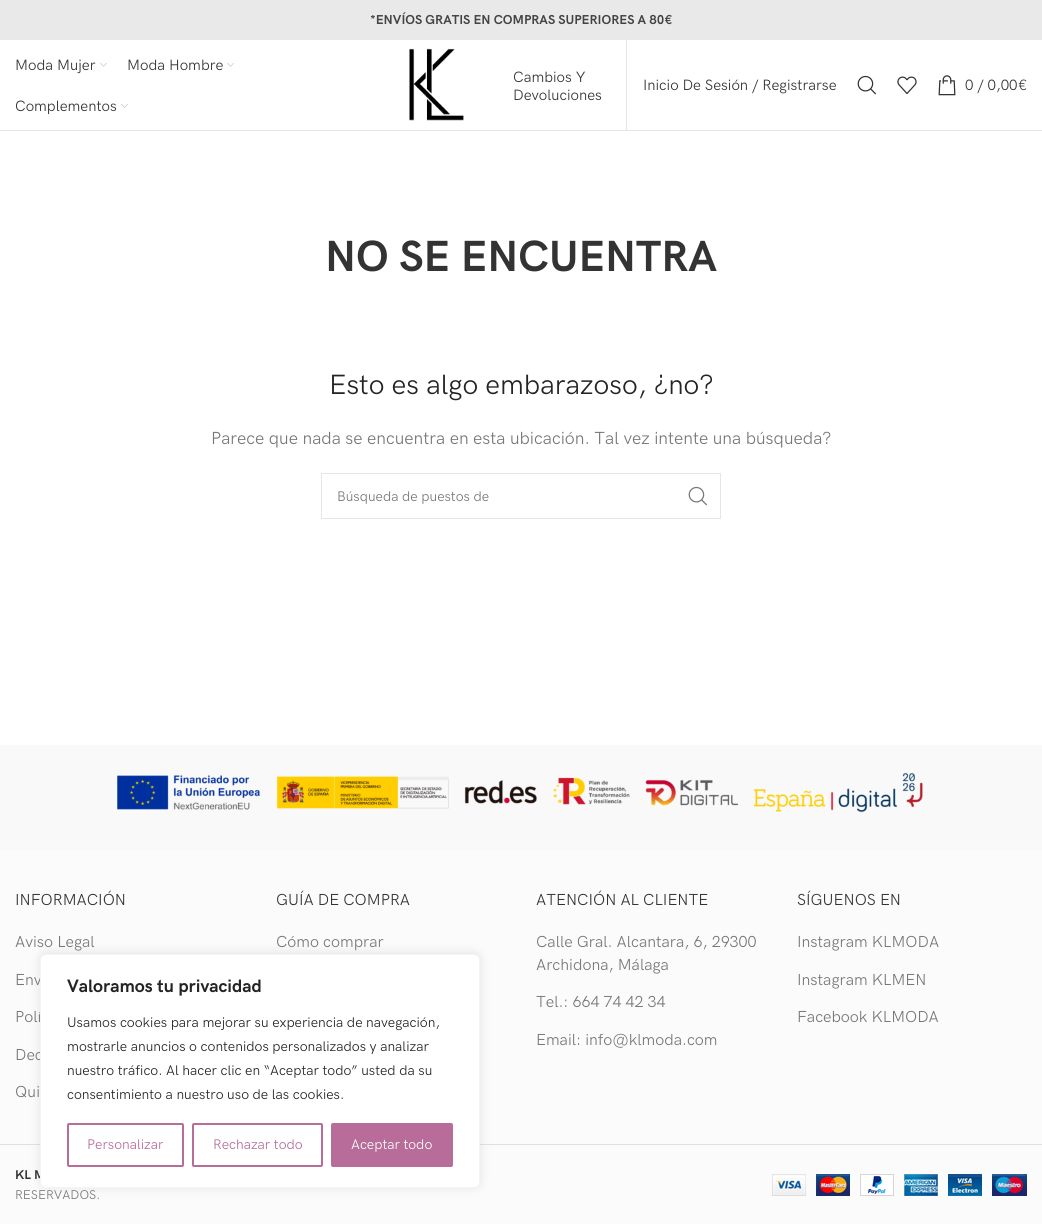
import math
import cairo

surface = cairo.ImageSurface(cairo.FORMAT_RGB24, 1042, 1228)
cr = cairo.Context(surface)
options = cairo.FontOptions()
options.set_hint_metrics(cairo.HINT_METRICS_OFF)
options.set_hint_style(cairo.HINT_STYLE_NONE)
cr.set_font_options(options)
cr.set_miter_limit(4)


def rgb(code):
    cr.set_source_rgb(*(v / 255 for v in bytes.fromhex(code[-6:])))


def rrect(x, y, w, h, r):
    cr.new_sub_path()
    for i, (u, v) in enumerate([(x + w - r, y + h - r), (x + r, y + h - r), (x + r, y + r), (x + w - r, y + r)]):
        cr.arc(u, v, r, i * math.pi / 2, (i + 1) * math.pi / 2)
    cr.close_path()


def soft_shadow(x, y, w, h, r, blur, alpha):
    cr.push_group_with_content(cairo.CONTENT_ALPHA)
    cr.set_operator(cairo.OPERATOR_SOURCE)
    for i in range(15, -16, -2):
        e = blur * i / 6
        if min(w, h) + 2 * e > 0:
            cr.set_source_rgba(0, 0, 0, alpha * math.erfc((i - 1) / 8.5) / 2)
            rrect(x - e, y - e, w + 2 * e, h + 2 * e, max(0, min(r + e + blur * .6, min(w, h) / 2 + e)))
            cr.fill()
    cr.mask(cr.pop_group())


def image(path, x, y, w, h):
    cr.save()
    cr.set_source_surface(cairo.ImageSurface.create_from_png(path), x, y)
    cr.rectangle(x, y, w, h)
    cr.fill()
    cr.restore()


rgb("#ffffff")
cr.paint()
rgb("#e9e9e9")
cr.rectangle(0, 0, 1042, 40)
cr.fill()
rgb("#e6e6e6")
cr.rectangle(0, 130, 1042, 1)
cr.fill()
image("img/1.png", 100, 63, 7, 4)
image("img/1.png", 227, 63, 7, 4)
image("img/1.png", 121, 104, 7, 4)
image("img/2.png", 409, 48, 55, 73)
rgb("#e4e4e4")
cr.rectangle(626, 40, 1, 90)
cr.fill()
image("img/3.png", 857, 75, 20, 20)
image("img/4.png", 897, 76, 20, 18)
image("img/5.png", 938, 75, 18, 21)
cr.rectangle(321.5, 473.5, 399, 45)
rgb("#e6e6e6")
cr.set_line_width(1)
cr.stroke()
image("img/6.png", 688, 486, 20, 20)
rgb("#f9f9f9")
cr.rectangle(0, 745, 1042, 105)
cr.fill()
image("img/7.png", 117, 772, 806, 41)
rgb("#fbfbfb")
cr.rectangle(0, 850, 1042, 374)
cr.fill()
rgb("#e0e0e0")
cr.rectangle(0, 1144, 1042, 1)
cr.fill()
image("img/8.png", 772, 1174, 255, 22)
rgb("#acabab")
soft_shadow(40, 953, 440, 234, 6, 5, 0.3)
cr.select_font_face("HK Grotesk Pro", cairo.FONT_SLANT_NORMAL, cairo.FONT_WEIGHT_BOLD)
cr.set_font_size(13)
rgb("#444444")
cr.move_to(370, 24)
cr.show_text("*ENVÍOS GRATIS EN COMPRAS SUPERIORES A 80€")
cr.select_font_face("HK Grotesk Pro")
cr.set_font_size(15)
rgb("#333333")
for x, y, s in [
    (15, 70, "Moda Mujer"),
    (127, 70, "Moda Hombre"),
    (15, 111, "Complementos"),
    (513, 82, "Cambios Y"),
    (513, 100, "Devoluciones"),
    (643, 90, "Inicio De Sesión / Registrarse"),
    (965, 90, "0 / 0,00€"),
]:
    cr.move_to(x, y)
    cr.show_text(s)
cr.select_font_face("HK Grotesk Pro", cairo.FONT_SLANT_NORMAL, cairo.FONT_WEIGHT_BOLD)
cr.set_font_size(43.75)
cr.move_to(325, 271)
cr.show_text("NO SE ENCUENTRA")
cr.select_font_face("HK Grotesk Pro")
cr.set_font_size(28)
rgb("#242424")
cr.move_to(329, 394)
cr.show_text("Esto es algo embarazoso, ¿no?")
cr.set_font_size(17.6)
rgb("#777777")
cr.move_to(211, 444)
cr.show_text("Parece que nada se encuentra en esta ubicación. Tal vez intente una búsqueda?")
cr.set_font_size(14)
cr.move_to(337, 501)
cr.show_text("Búsqueda de puestos de")
cr.set_font_size(16)
rgb("#333333")
cr.move_to(15, 905)
cr.show_text("INFORMACIÓN")
rgb("#777777")
for x, y, s in [
    (15, 947, "Aviso Legal"),
    (15, 985, "Env"),
    (15, 1022, "Polí"),
    (15, 1060, "Dec"),
    (15, 1097, "Qui"),
]:
    cr.move_to(x, y)
    cr.show_text(s)
rgb("#333333")
cr.move_to(276, 905)
cr.show_text("GUÍA DE COMPRA")
rgb("#777777")
cr.move_to(276, 947)
cr.show_text("Cómo comprar")
rgb("#333333")
cr.move_to(536, 905)
cr.show_text("ATENCIÓN AL CLIENTE")
rgb("#777777")
for x, y, s in [
    (536, 947, "Calle Gral. Alcantara, 6, 29300"),
    (536, 970, "Archidona, Málaga"),
    (536, 1007, "Tel.: 664 74 42 34"),
    (536, 1045, "Email: info@klmoda.com"),
]:
    cr.move_to(x, y)
    cr.show_text(s)
rgb("#333333")
cr.move_to(797, 905)
cr.show_text("SÍGUENOS EN")
rgb("#777777")
for x, y, s in [
    (797, 947, "Instagram KLMODA"),
    (797, 985, "Instagram KLMEN"),
    (797, 1022, "Facebook KLMODA"),
]:
    cr.move_to(x, y)
    cr.show_text(s)
cr.select_font_face("HK Grotesk Pro", cairo.FONT_SLANT_NORMAL, cairo.FONT_WEIGHT_BOLD)
cr.set_font_size(12.75)
rgb("#333333")
cr.move_to(15, 1179)
cr.show_text("KL M")
cr.select_font_face("HK Grotesk Pro")
rgb("#777777")
cr.move_to(15, 1199)
cr.show_text("RESERVADOS.")
rgb("#ffffff")
rrect(40.5, 954.5, 439, 233, 5.5)
cr.fill_preserve()
rgb("#f4f4f4")
cr.stroke()
cr.select_font_face("HK Grotesk Pro", cairo.FONT_SLANT_NORMAL, cairo.FONT_WEIGHT_BOLD)
cr.set_font_size(18)
rgb("#242424")
cr.move_to(67, 992)
cr.show_text("Valoramos tu privacidad")
cr.select_font_face("HK Grotesk Pro")
cr.set_font_size(14)
for x, y, s in [
    (67, 1027, "Usamos cookies para mejorar su experiencia de navegación,"),
    (67, 1051, "mostrarle anuncios o contenidos personalizados y analizar"),
    (67, 1075, "nuestro tráfico. Al hacer clic en “Aceptar todo” usted da su"),
    (67, 1099, "consentimiento a nuestro uso de las cookies."),
]:
    cr.move_to(x, y)
    cr.show_text(s)
rrect(68, 1124, 115, 42, 1)
rgb("#b76c9a")
cr.set_line_width(2)
cr.stroke()
cr.move_to(87, 1149)
cr.show_text("Personalizar")
rrect(193, 1124, 129, 42, 1)
cr.stroke()
cr.move_to(213, 1149)
cr.show_text("Rechazar todo")
rrect(332, 1124, 120, 42, 1)
cr.fill_preserve()
cr.stroke()
rgb("#ffffff")
cr.move_to(351, 1149)
cr.show_text("Aceptar todo")
surface.write_to_png("page.png")
